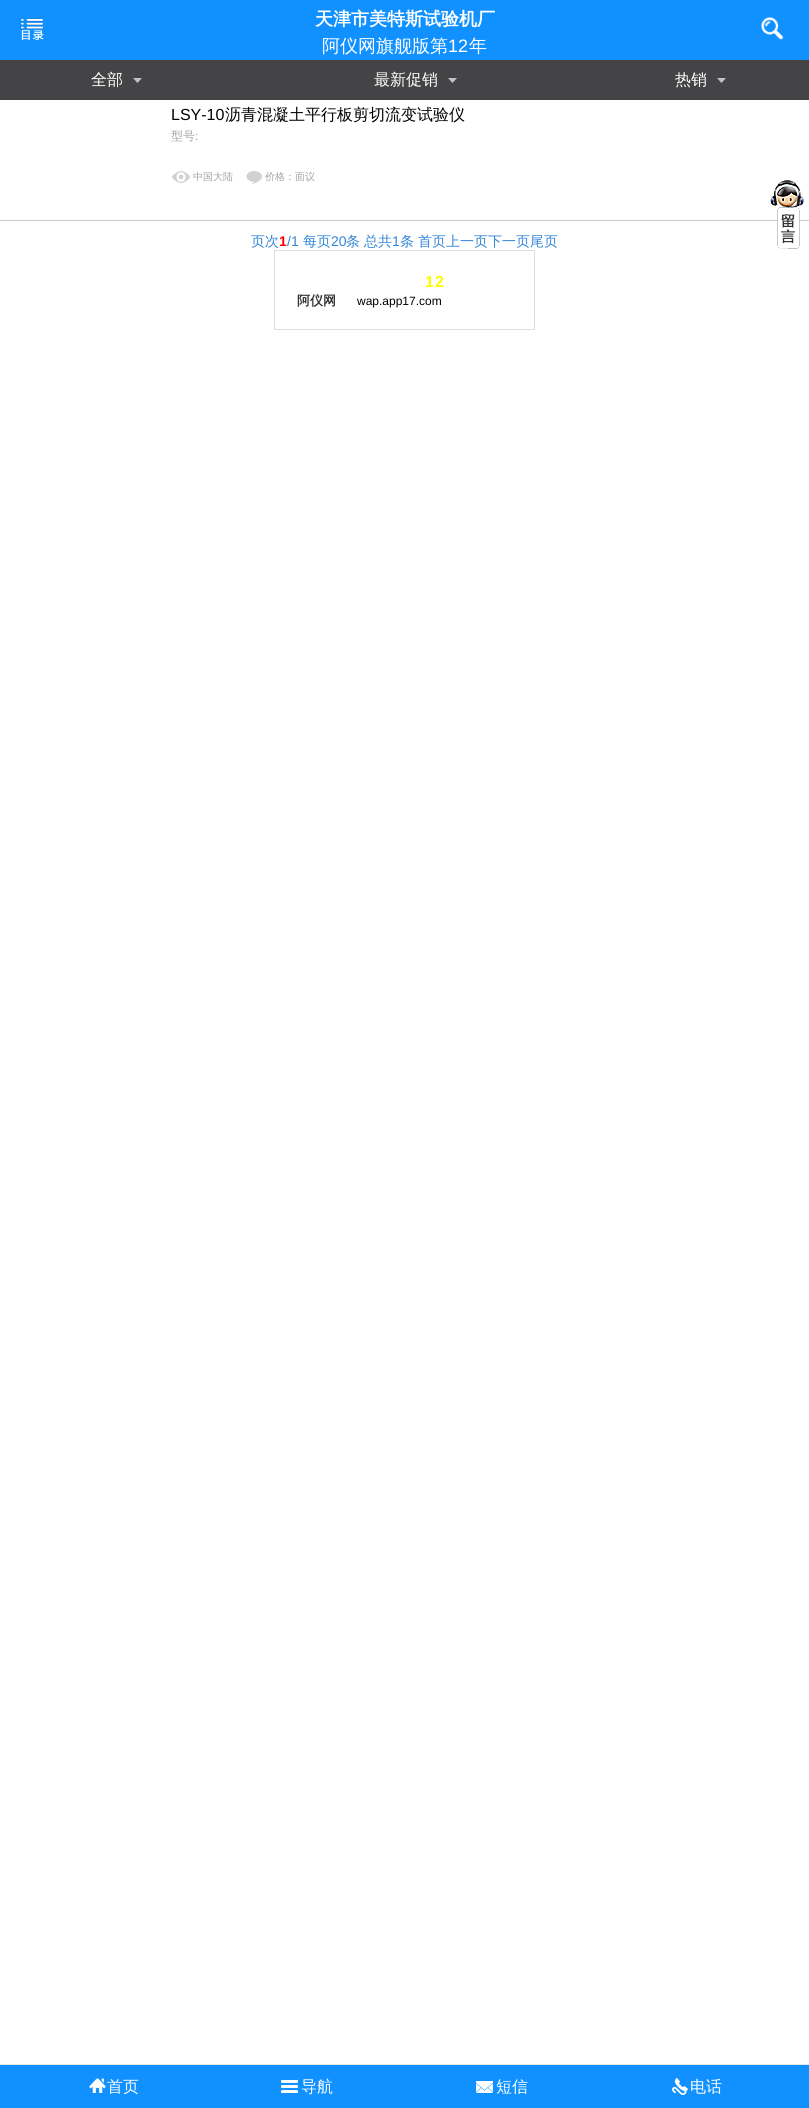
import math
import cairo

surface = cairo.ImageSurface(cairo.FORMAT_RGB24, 809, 2108)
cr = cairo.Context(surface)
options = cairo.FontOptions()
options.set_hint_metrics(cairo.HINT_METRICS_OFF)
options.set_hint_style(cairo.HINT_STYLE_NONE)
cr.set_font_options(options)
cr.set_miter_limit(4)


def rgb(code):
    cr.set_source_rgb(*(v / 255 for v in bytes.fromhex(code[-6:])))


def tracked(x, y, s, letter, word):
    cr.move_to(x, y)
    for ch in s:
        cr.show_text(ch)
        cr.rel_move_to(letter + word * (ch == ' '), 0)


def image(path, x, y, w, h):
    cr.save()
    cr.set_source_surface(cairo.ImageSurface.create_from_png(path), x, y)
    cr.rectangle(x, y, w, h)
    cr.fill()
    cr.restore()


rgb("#ffffff")
cr.paint()
rgb("#1091ff")
cr.rectangle(0, 0, 809, 60)
cr.fill()
image("img/1.png", 20, 18, 24, 22)
image("img/2.png", 761, 17, 23, 23)
rgb("#444446")
cr.rectangle(0, 60, 809, 40)
cr.fill()
image("img/3.png", 133, 78, 9, 5)
image("img/3.png", 448, 78, 9, 5)
image("img/3.png", 717, 78, 9, 5)
image("img/4.png", 172, 171, 18, 12)
image("img/5.png", 246, 171, 16, 13)
rgb("#cbcbcb")
cr.rectangle(0, 220, 809, 1)
cr.fill()
image("img/6.png", 770, 180, 34, 69)
cr.rectangle(274.5, 250.5, 260, 79)
rgb("#dedede")
cr.set_line_width(1)
cr.stroke()
rgb("#1091ff")
cr.rectangle(0, 2065, 809, 43)
cr.fill()
rgb("#e3e3e3")
cr.rectangle(0, 2064, 809, 1)
cr.fill()
image("img/7.png", 89, 2078, 17, 15)
image("img/8.png", 281, 2080, 17, 13)
image("img/9.png", 476, 2081, 17, 12)
image("img/10.png", 672, 2078, 16, 17)
cr.select_font_face("WenQuanYi Zen Hei", cairo.FONT_SLANT_NORMAL, cairo.FONT_WEIGHT_BOLD)
cr.set_font_size(18)
rgb("#ffffff")
cr.move_to(315, 25)
cr.show_text("天津市美特斯试验机厂")
cr.select_font_face("WenQuanYi Zen Hei Medium")
cr.move_to(322, 52)
cr.show_text("阿仪网旗舰版第")
cr.select_font_face("Liberation Sans")
cr.move_to(448, 52)
cr.show_text("12")
cr.select_font_face("WenQuanYi Zen Hei Medium")
cr.move_to(469, 52)
cr.show_text("年")
cr.set_font_size(16)
for x, y, s in [
    (91, 85, "全部"),
    (374, 85, "最新促销"),
    (675, 85, "热销"),
]:
    cr.move_to(x, y)
    cr.show_text(s)
cr.select_font_face("Liberation Sans")
rgb("#000000")
cr.move_to(171, 120)
cr.show_text("LSY-10")
cr.select_font_face("WenQuanYi Zen Hei Medium")
cr.move_to(225, 120)
cr.show_text("沥青混凝土平行板剪切流变试验仪")
cr.set_font_size(12)
rgb("#a2a2a2")
cr.move_to(171, 140)
cr.show_text("型号")
cr.select_font_face("Liberation Sans")
cr.move_to(195, 140)
cr.show_text(":")
cr.select_font_face("WenQuanYi Zen Hei Medium")
cr.set_font_size(10)
cr.move_to(193, 180)
cr.show_text("中国大陆")
cr.move_to(265, 180)
cr.show_text("价格：面议")
cr.set_font_size(14)
rgb("#3386d6")
cr.move_to(251, 246)
cr.show_text("页次")
cr.select_font_face("Liberation Sans", cairo.FONT_SLANT_NORMAL, cairo.FONT_WEIGHT_BOLD)
rgb("#ff0000")
cr.move_to(279, 246)
cr.show_text("1")
cr.select_font_face("Liberation Sans")
rgb("#3386d6")
cr.move_to(287, 246)
cr.show_text("/1")
cr.select_font_face("WenQuanYi Zen Hei Medium")
cr.move_to(303, 246)
cr.show_text("每页")
cr.select_font_face("Liberation Sans")
cr.move_to(331, 246)
cr.show_text("20")
cr.select_font_face("WenQuanYi Zen Hei Medium")
cr.move_to(346, 246)
cr.show_text("条")
cr.move_to(364, 246)
cr.show_text("总共")
cr.select_font_face("Liberation Sans")
cr.move_to(392, 246)
cr.show_text("1")
cr.select_font_face("WenQuanYi Zen Hei Medium")
cr.move_to(400, 246)
cr.show_text("条")
cr.move_to(418, 246)
cr.show_text("首页上一页下一页尾页")
cr.select_font_face("Liberation Sans", cairo.FONT_SLANT_NORMAL, cairo.FONT_WEIGHT_BOLD)
cr.set_font_size(16)
rgb("#fbff00")
tracked(425, 287, "12", 1, 0)
cr.select_font_face("WenQuanYi Zen Hei", cairo.FONT_SLANT_NORMAL, cairo.FONT_WEIGHT_BOLD)
cr.set_font_size(13)
rgb("#333333")
cr.move_to(297, 305)
cr.show_text("阿仪网")
cr.select_font_face("Liberation Sans")
cr.set_font_size(12)
rgb("#000000")
cr.move_to(357, 305)
cr.show_text("wap.app17.com")
cr.select_font_face("WenQuanYi Zen Hei Medium")
cr.set_font_size(16)
rgb("#ffffff")
for x, y, s in [
    (107, 2092, "首页"),
    (301, 2092, "导航"),
    (496, 2092, "短信"),
    (690, 2092, "电话"),
]:
    cr.move_to(x, y)
    cr.show_text(s)
surface.write_to_png("page.png")
